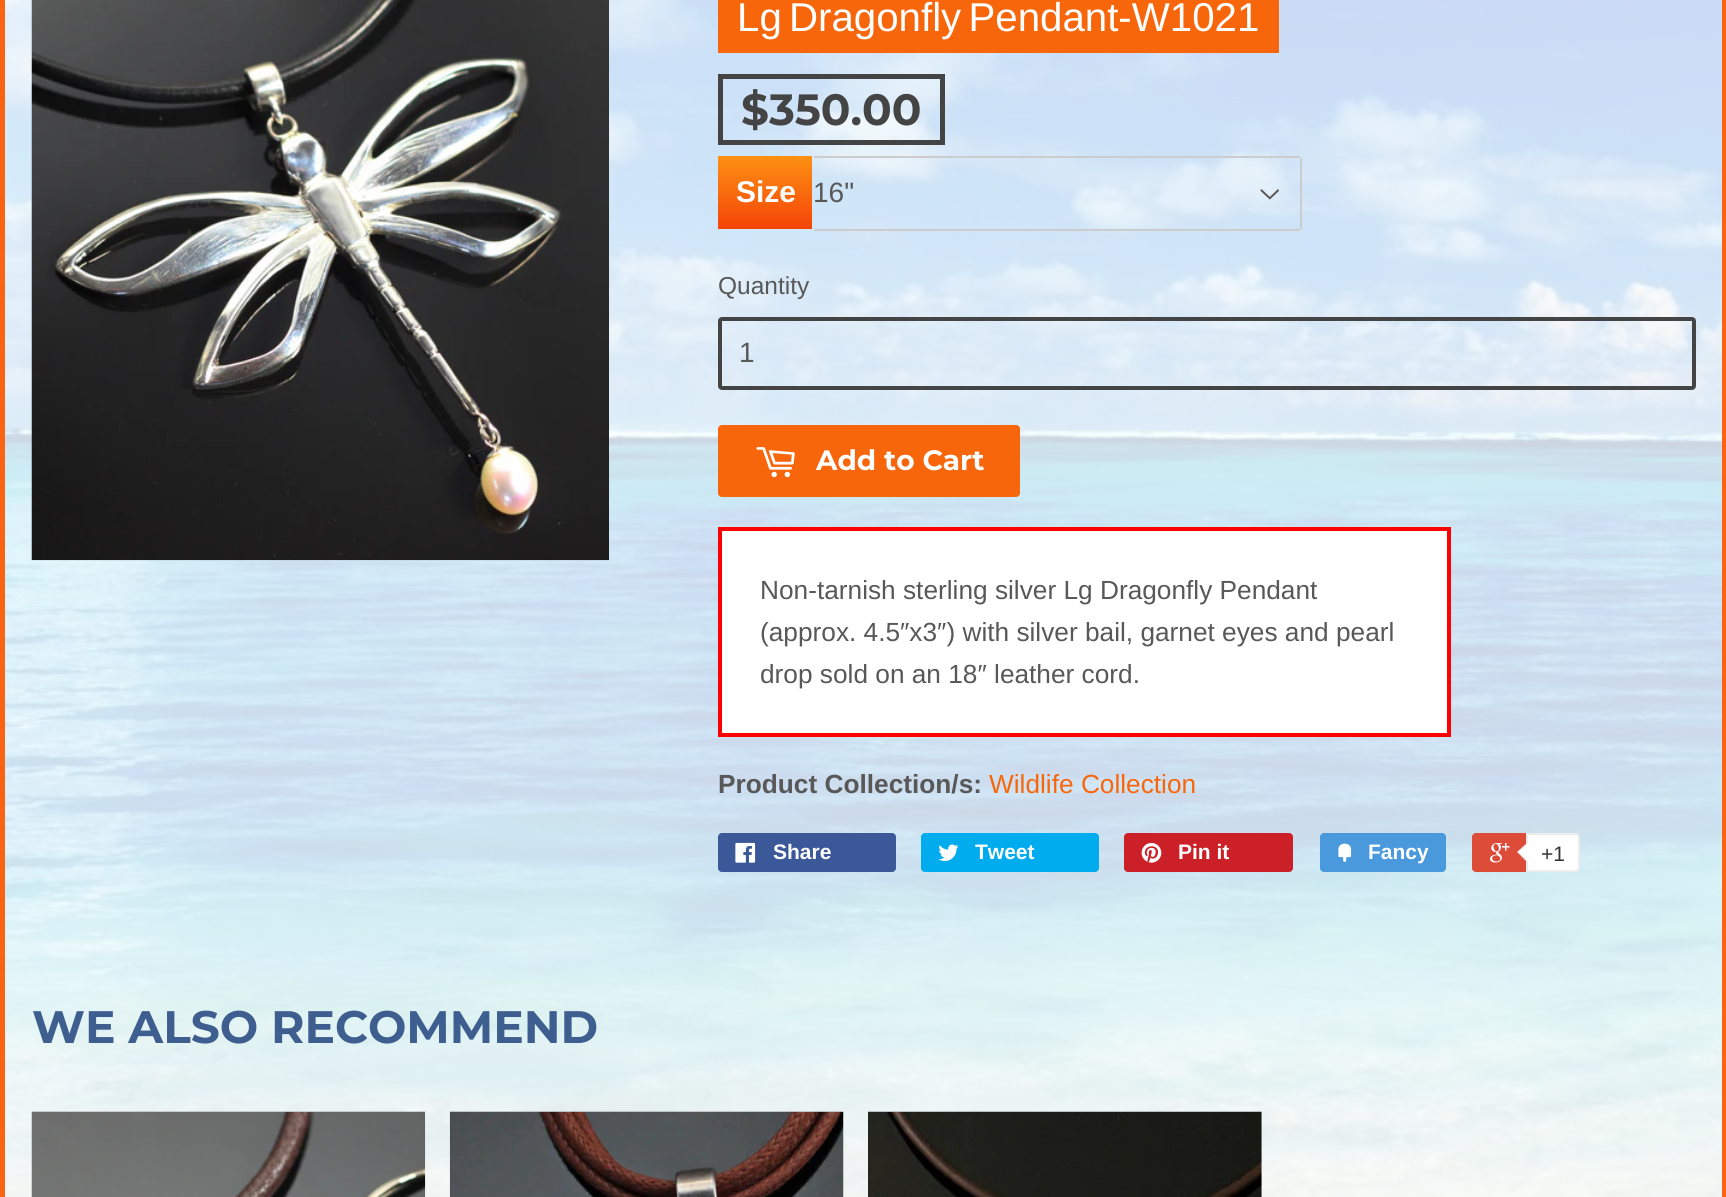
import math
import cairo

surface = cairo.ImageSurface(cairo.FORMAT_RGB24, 1726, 1197)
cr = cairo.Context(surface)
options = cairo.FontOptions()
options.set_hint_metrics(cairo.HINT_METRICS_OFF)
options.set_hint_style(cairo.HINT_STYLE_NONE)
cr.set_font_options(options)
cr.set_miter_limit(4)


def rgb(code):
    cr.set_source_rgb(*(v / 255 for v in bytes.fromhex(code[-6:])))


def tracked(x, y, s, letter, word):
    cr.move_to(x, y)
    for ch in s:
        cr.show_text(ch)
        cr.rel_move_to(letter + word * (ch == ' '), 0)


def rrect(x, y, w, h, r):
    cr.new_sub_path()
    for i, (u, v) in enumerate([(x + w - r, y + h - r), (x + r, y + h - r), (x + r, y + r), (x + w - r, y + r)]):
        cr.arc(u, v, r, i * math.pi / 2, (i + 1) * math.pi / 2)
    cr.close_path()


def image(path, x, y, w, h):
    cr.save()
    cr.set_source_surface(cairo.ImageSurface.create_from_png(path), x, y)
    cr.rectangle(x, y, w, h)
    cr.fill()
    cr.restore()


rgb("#ffffff")
cr.paint()
image("img/1.png", 5, 0, 1717, 1197)
cr.rectangle(2.5, -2.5, 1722, 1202)
rgb("#f96311")
cr.set_line_width(5)
cr.stroke()
image("img/2.png", 31, 0, 578, 561)
rgb("#f8660c")
cr.rectangle(718, 0, 561, 53)
cr.fill()
cr.rectangle(720.5, 76.5, 222, 66)
rgb("#444444")
cr.stroke()
gradient = cairo.LinearGradient(765, 156, 765, 229)
gradient.add_color_stop_rgba(0, 0.992, 0.569, 0.071, 1)
gradient.add_color_stop_rgba(1, 0.957, 0.267, 0.031, 1)
cr.set_source(gradient)
cr.rectangle(718, 156, 94, 73)
cr.fill()
image("img/3.png", 1260, 189, 19, 11)
for x, y, w, h, color in [
    (814, 156, 486, 2, "#cccccc"),
    (1300, 158, 2, 71, "#cccccc"),
    (814, 229, 486, 2, "#cccccc"),
]:
    rgb(color)
    cr.rectangle(x, y, w, h)
    cr.fill()
rrect(720, 319, 974, 69, 2)
rgb("#444444")
cr.set_line_width(4)
cr.stroke()
rgb("#f8660c")
rrect(718, 425, 302, 72, 4)
cr.fill()
image("img/4.png", 756, 447, 39, 31)
rgb("#ffffff")
cr.rectangle(720, 529, 729, 206)
cr.fill_preserve()
rgb("#ff0000")
cr.stroke()
rgb("#3b5998")
rrect(718, 833, 178, 39, 4)
cr.fill()
image("img/5.png", 735, 842, 21, 21)
rgb("#00aced")
rrect(921, 833, 178, 39, 4)
cr.fill()
image("img/6.png", 938, 844, 21, 17)
rgb("#cb2027")
rrect(1124, 833, 169, 39, 4)
cr.fill()
image("img/7.png", 1141, 843, 21, 20)
rgb("#4999dc")
rrect(1320, 833, 126, 39, 4)
cr.fill()
image("img/8.png", 1338, 843, 14, 19)
rgb("#dd4b39")
rrect(1472, 833, 105, 39, 4)
cr.fill()
image("img/9.png", 1490, 843, 20, 20)
rgb("#ffffff")
cr.new_path()
cr.move_to(1527, 834)
cr.line_to(1576, 834)
cr.curve_to(1577.5, 834, 1579, 835.5, 1579, 837)
cr.line_to(1579, 868)
cr.curve_to(1579, 869.5, 1577.5, 871, 1576, 871)
cr.line_to(1527, 871)
cr.close_path()
cr.fill_preserve()
rgb("#ececec")
cr.set_line_width(2)
cr.stroke()
cr.new_path()
cr.move_to(1528, 842)
cr.line_to(1528, 863)
cr.line_to(1517, 852)
cr.close_path()
cr.fill()
rgb("#ffffff")
cr.new_path()
cr.move_to(1529.5, 842)
cr.line_to(1529.5, 863)
cr.line_to(1519, 852)
cr.close_path()
cr.fill()
image("img/10.png", 31, 1111, 395, 86)
image("img/11.png", 449, 1111, 395, 86)
image("img/12.png", 868, 1111, 394, 86)
cr.select_font_face("Liberation Sans")
cr.set_font_size(40.25)
tracked(737, 31, "Lg Dragonfly Pendant-W1021", 0, -4)
cr.select_font_face("Montserrat Thin")
cr.set_font_size(43.75)
rgb("#444444")
cr.move_to(741, 125)
cr.show_text("$350.00")
cr.select_font_face("Liberation Sans", cairo.FONT_SLANT_NORMAL, cairo.FONT_WEIGHT_BOLD)
cr.set_font_size(30)
rgb("#ffffff")
cr.move_to(736, 202)
cr.show_text("Size")
cr.select_font_face("Liberation Sans")
cr.set_font_size(28)
rgb("#585858")
cr.move_to(813, 202)
cr.show_text("16\"")
cr.set_font_size(24.5)
cr.move_to(718, 294)
cr.show_text("Quantity")
cr.set_font_size(28)
cr.move_to(739, 362)
cr.show_text("1")
cr.select_font_face("Montserrat Thin")
rgb("#ffffff")
cr.move_to(816, 470)
cr.show_text("Add to Cart")
cr.select_font_face("Liberation Sans")
cr.set_font_size(26.25)
rgb("#585858")
for x, y, s in [
    (760, 599, "Non-tarnish sterling silver Lg Dragonfly Pendant"),
    (760, 641, "(approx. 4.5″x3″) with silver bail, garnet eyes and pearl"),
    (760, 683, "drop sold on an 18″ leather cord."),
]:
    cr.move_to(x, y)
    cr.show_text(s)
cr.select_font_face("Liberation Sans", cairo.FONT_SLANT_NORMAL, cairo.FONT_WEIGHT_BOLD)
cr.move_to(718, 793)
cr.show_text("Product Collection/s:")
cr.select_font_face("Liberation Sans")
rgb("#f8660c")
cr.move_to(989, 793)
cr.show_text("Wildlife Collection")
cr.select_font_face("Liberation Sans", cairo.FONT_SLANT_NORMAL, cairo.FONT_WEIGHT_BOLD)
cr.set_font_size(21)
rgb("#ffffff")
for x, y, s in [
    (773, 859, "Share"),
    (975, 859, "Tweet"),
    (1178, 859, "Pin it"),
    (1368, 859, "Fancy"),
]:
    cr.move_to(x, y)
    cr.show_text(s)
cr.select_font_face("Liberation Sans")
rgb("#333333")
cr.move_to(1541, 861)
cr.show_text("+1")
cr.select_font_face("Montserrat Thin")
cr.set_font_size(45.5)
rgb("#3e5e8f")
cr.move_to(32, 1043)
cr.show_text("WE ALSO RECOMMEND")
surface.write_to_png("page.png")
